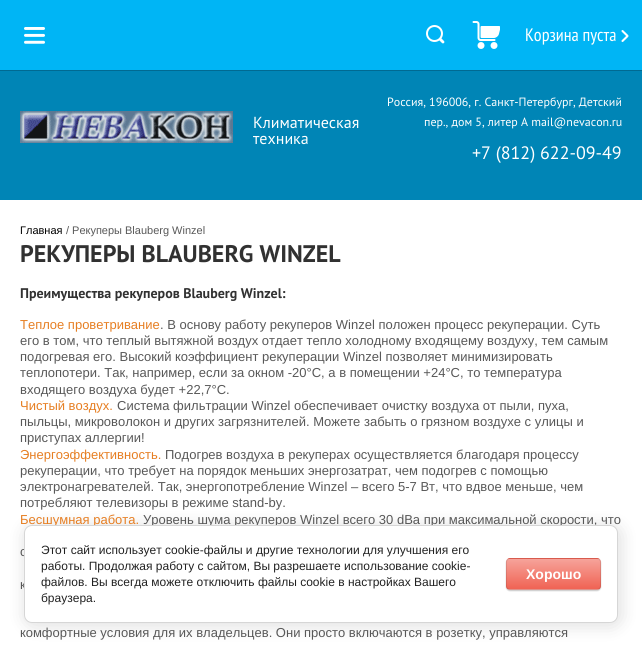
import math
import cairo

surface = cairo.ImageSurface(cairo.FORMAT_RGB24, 642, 647)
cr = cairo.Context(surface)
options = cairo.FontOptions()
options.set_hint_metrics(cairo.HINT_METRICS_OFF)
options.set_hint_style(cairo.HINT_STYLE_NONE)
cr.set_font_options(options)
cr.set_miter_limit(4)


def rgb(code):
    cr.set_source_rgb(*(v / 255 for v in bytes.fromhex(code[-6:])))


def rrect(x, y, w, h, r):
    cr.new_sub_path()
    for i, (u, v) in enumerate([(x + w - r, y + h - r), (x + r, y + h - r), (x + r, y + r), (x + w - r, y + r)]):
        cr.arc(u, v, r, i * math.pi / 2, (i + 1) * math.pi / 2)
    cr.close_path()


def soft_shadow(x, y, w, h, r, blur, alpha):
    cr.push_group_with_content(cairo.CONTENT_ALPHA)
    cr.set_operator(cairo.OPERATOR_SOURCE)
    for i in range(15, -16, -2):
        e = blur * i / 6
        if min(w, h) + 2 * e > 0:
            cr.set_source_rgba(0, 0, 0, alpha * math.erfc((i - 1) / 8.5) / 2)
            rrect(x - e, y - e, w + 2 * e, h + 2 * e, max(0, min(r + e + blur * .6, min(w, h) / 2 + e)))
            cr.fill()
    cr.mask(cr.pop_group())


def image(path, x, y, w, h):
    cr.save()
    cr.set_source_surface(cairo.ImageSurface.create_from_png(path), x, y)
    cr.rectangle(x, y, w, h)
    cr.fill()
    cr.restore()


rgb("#ffffff")
cr.paint()
rgb("#006a92")
cr.rectangle(0, 70, 642, 1)
cr.fill()
rgb("#00b5f5")
cr.rectangle(0, 0, 642, 70)
cr.fill()
image("img/1.png", 24, 27, 21, 17)
image("img/2.png", 426, 25, 19, 19)
image("img/3.png", 472, 21, 28, 28)
image("img/4.png", 621, 30, 8, 12)
rgb("#0085b6")
cr.rectangle(0, 71, 642, 129)
cr.fill()
image("img/5.png", 20, 111, 213, 32)
rgb("#000000")
soft_shadow(26, 527, 594, 98, 8, 9, 0.14)
cr.select_font_face("PT Sans Narrow")
cr.set_font_size(18)
rgb("#ffffff")
cr.move_to(525, 41)
cr.show_text("Корзина пуста")
cr.select_font_face("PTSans")
cr.set_font_size(16)
cr.move_to(253, 128)
cr.show_text("Климатическая")
cr.move_to(253, 144)
cr.show_text("техника")
cr.set_font_size(12)
cr.move_to(387, 106)
cr.show_text("Россия, 196006, г. Санкт-Петербург, Детский")
cr.move_to(424, 126)
cr.show_text("пер., дом 5, литер А mail@nevacon.ru")
cr.set_font_size(18)
cr.move_to(472, 159)
cr.show_text("+7 (812) 622-09-49")
cr.select_font_face("Liberation Sans")
cr.set_font_size(11)
rgb("#000000")
cr.move_to(20, 234)
cr.show_text("Главная")
rgb("#585858")
cr.move_to(66, 234)
cr.show_text("/ Рекуперы Blauberg Winzel")
cr.select_font_face("PTSans", cairo.FONT_SLANT_NORMAL, cairo.FONT_WEIGHT_BOLD)
cr.set_font_size(24)
rgb("#313131")
cr.move_to(20, 262)
cr.show_text("РЕКУПЕРЫ BLAUBERG WINZEL")
cr.set_font_size(14)
cr.move_to(20, 298)
cr.show_text("Преимущества рекуперов Blauberg Winzel:")
cr.select_font_face("Liberation Sans")
cr.set_font_size(13)
rgb("#e67e22")
cr.move_to(20, 329)
cr.show_text("Теплое проветривание")
rgb("#585858")
for x, y, s in [
    (160, 329, ". В основу работу рекуперов Winzel положен процесс рекуперации. Суть"),
    (20, 345, "его в том, что теплый вытяжной воздух отдает тепло холодному входящему воздуху, тем самым"),
    (20, 361, "подогревая его. Высокий коэффициент рекуперации Winzel позволяет минимизировать"),
    (20, 377, "теплопотери. Так, например, если за окном -20°С, а в помещении +24°С, то температура"),
    (20, 394, "входящего воздуха будет +22,7°С."),
]:
    cr.move_to(x, y)
    cr.show_text(s)
rgb("#e67e22")
cr.move_to(20, 410)
cr.show_text("Чистый воздух.")
rgb("#585858")
for x, y, s in [
    (117, 410, "Система фильтрации Winzel обеспечивает очистку воздуха от пыли, пуха,"),
    (20, 426, "пыльцы, микроволокон и других загрязнителей. Можете забыть о грязном воздухе с улицы и"),
    (20, 442, "приступах аллергии!"),
]:
    cr.move_to(x, y)
    cr.show_text(s)
rgb("#e67e22")
cr.move_to(20, 459)
cr.show_text("Энергоэффективность.")
rgb("#585858")
for x, y, s in [
    (165, 459, "Подогрев воздуха в рекуперах осуществляется благодаря процессу"),
    (20, 475, "рекуперации, что требует на порядок меньших энергозатрат, чем подогрев с помощью"),
    (20, 491, "электронагревателей. Так, энергопотребление Winzel – всего 5-7 Вт, что вдвое меньше, чем"),
    (20, 507, "потребляют телевизоры в режиме stand-by."),
]:
    cr.move_to(x, y)
    cr.show_text(s)
rgb("#e67e22")
cr.move_to(20, 524)
cr.show_text("Бесшумная работа.")
rgb("#585858")
for x, y, s in [
    (143, 524, "Уровень шума рекуперов Winzel всего 30 dBa при максимальной скорости, что"),
    (20, 556, "с"),
    (20, 589, "к"),
    (20, 637, "комфортные условия для их владельцев. Они просто включаются в розетку, управляются"),
]:
    cr.move_to(x, y)
    cr.show_text(s)
rgb("#ffffff")
rrect(24.5, 525.5, 593, 97, 7.5)
cr.fill_preserve()
rgb("#d6d6d6")
cr.set_line_width(1)
cr.stroke()
cr.set_font_size(12)
rgb("#212121")
for x, y, s in [
    (41, 554, "Этот сайт использует cookie-файлы и другие технологии для улучшения его"),
    (41, 570, "работы. Продолжая работу с сайтом, Вы разрешаете использование cookie-"),
    (41, 586, "файлов. Вы всегда можете отключить файлы cookie в настройках Вашего"),
    (41, 602, "браузера."),
]:
    cr.move_to(x, y)
    cr.show_text(s)
rgb("#000000")
soft_shadow(506, 559, 95, 32, 4, 0.5, 0.2)
cr.save()
rrect(506, 558, 95, 32, 4)
cr.clip()
gradient = cairo.LinearGradient(554, 529, 554, 559)
gradient.add_color_stop_rgba(0, 0.965, 0.639, 0.604, 1)
gradient.add_color_stop_rgba(1, 0.941, 0.388, 0.329, 1)
cr.set_source(gradient)
cr.rectangle(506, 558, 95, 1)
cr.fill()
gradient = cairo.LinearGradient(554, 559, 554, 589)
gradient.add_color_stop_rgba(0, 0.965, 0.639, 0.604, 1)
gradient.add_color_stop_rgba(1, 0.941, 0.388, 0.329, 1)
cr.set_source(gradient)
cr.rectangle(506, 559, 95, 30)
cr.fill()
gradient = cairo.LinearGradient(554, 589, 554, 619)
gradient.add_color_stop_rgba(0, 0.965, 0.639, 0.604, 1)
gradient.add_color_stop_rgba(1, 0.941, 0.388, 0.329, 1)
cr.set_source(gradient)
cr.rectangle(506, 589, 95, 1)
cr.fill()
cr.restore()
rrect(506.5, 558.5, 94, 31, 3.5)
cr.set_source_rgba(0, 0, 0, 0.1)
cr.stroke()
cr.select_font_face("Liberation Sans", cairo.FONT_SLANT_NORMAL, cairo.FONT_WEIGHT_BOLD)
cr.set_font_size(14)
rgb("#ffffff")
cr.move_to(526, 579)
cr.show_text("Хорошо")
surface.write_to_png("page.png")
